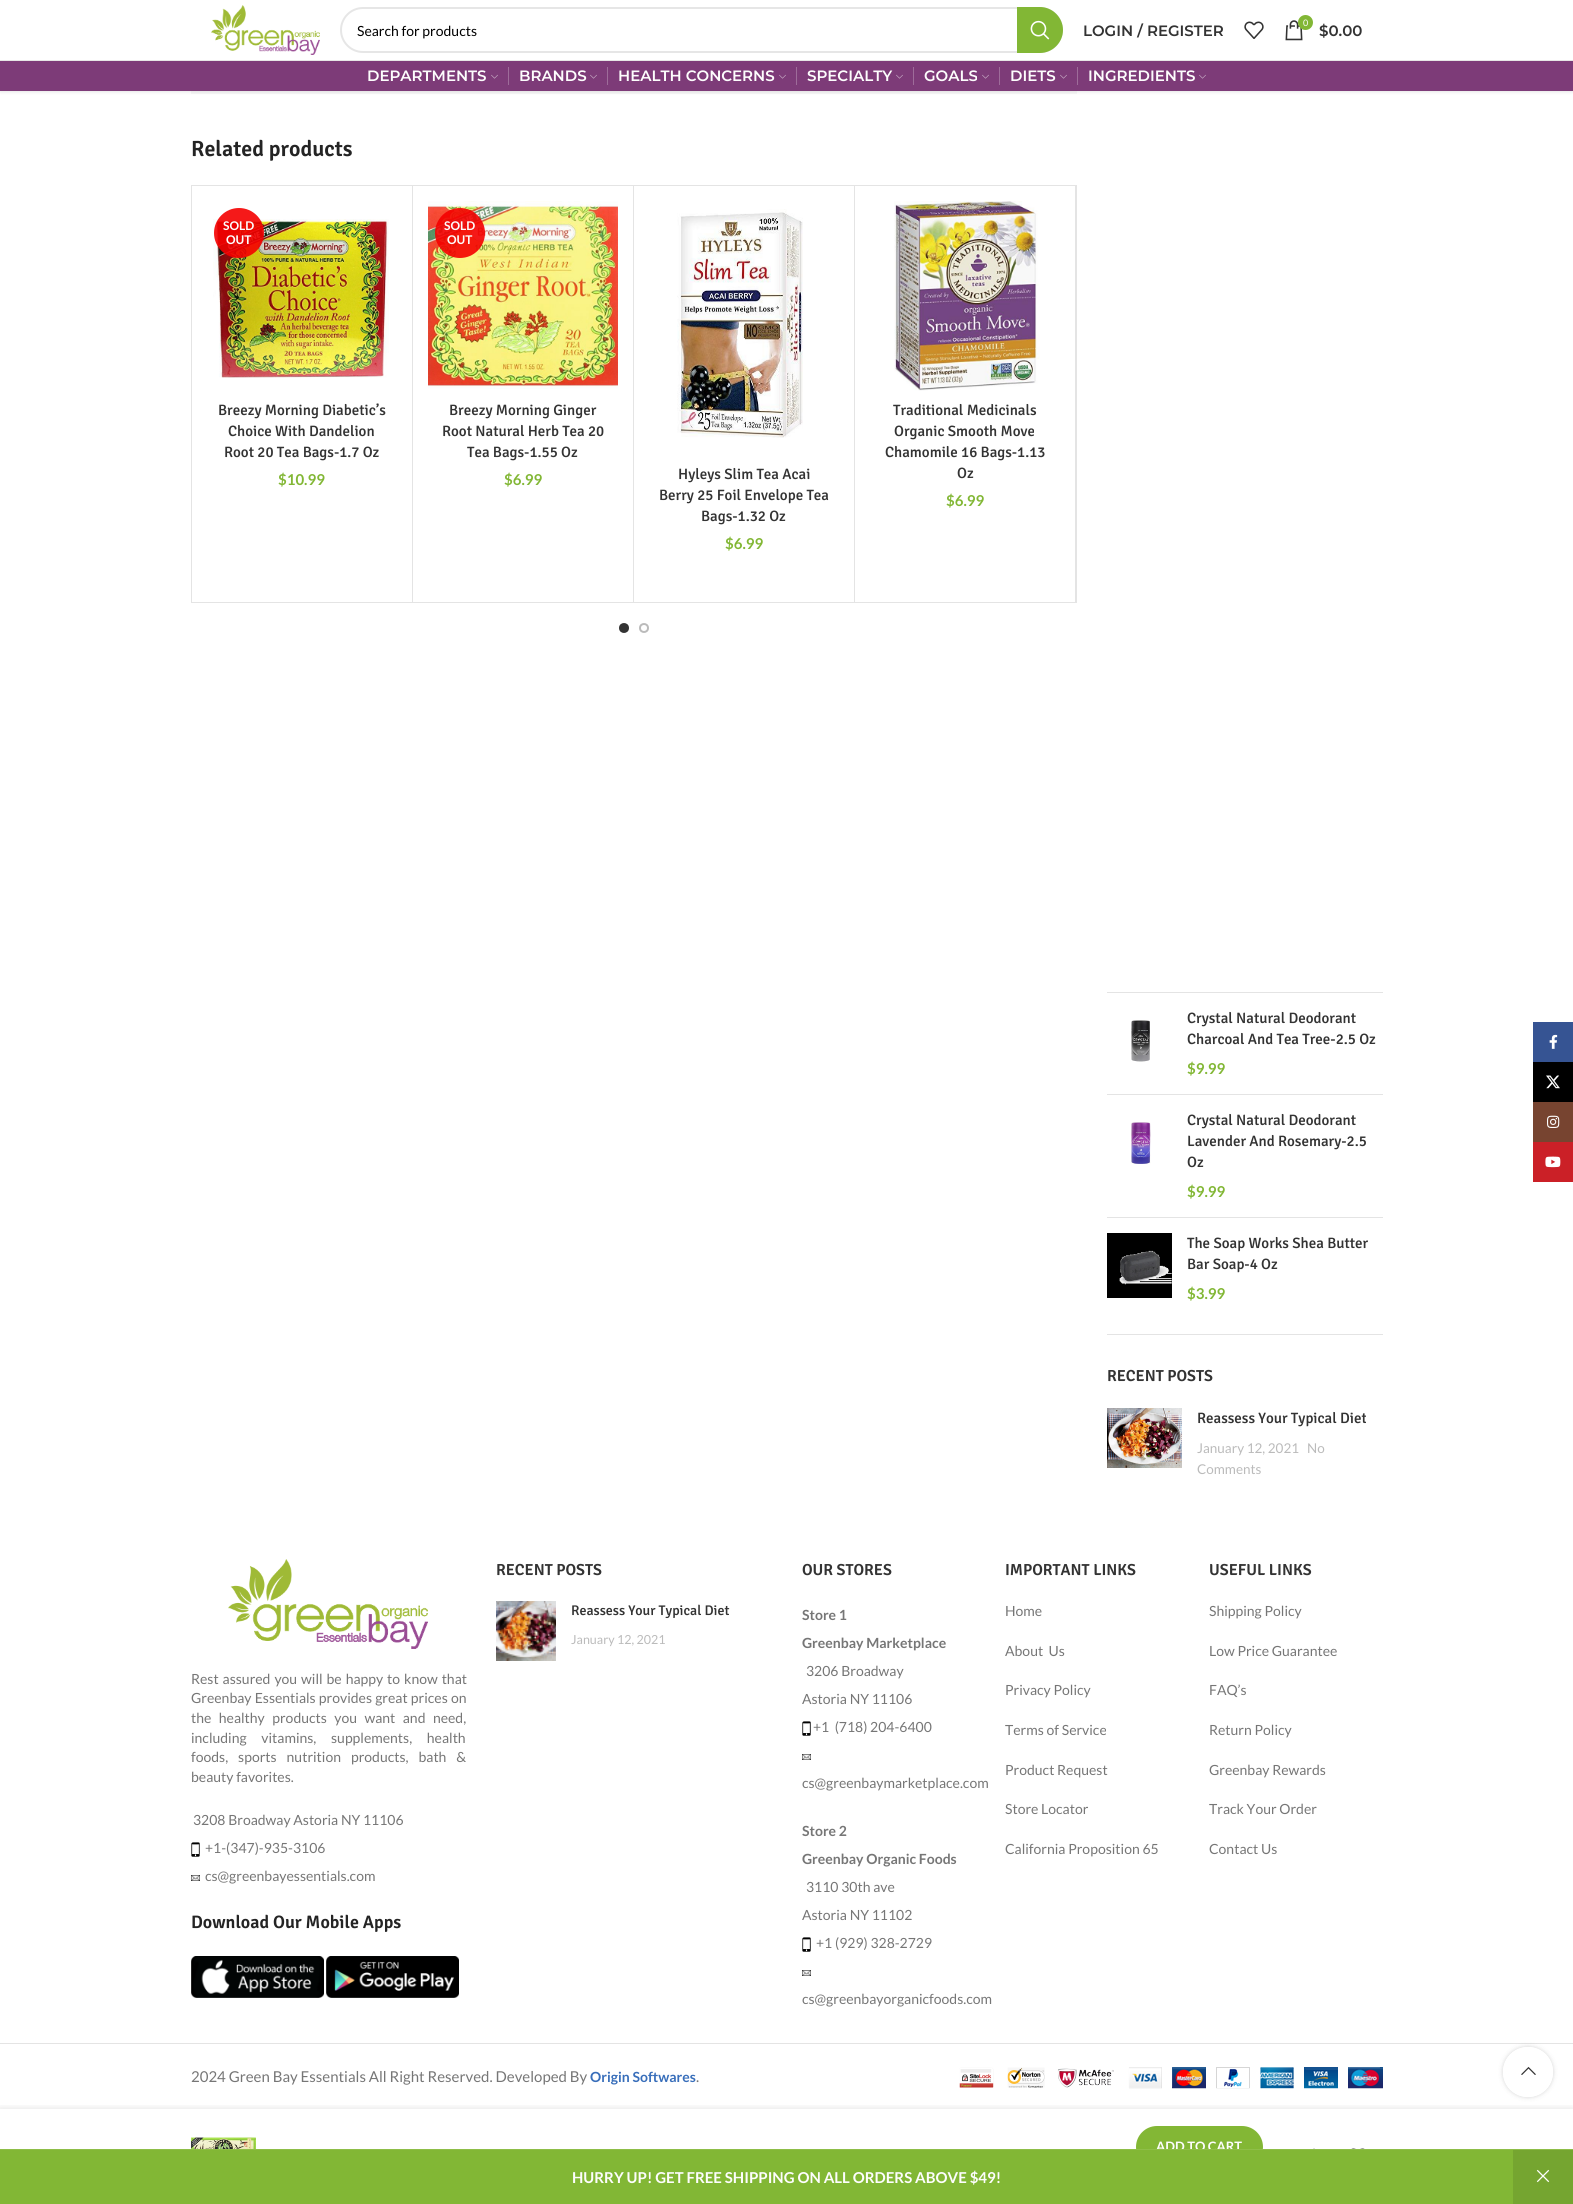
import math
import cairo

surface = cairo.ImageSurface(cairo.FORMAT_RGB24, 1573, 2204)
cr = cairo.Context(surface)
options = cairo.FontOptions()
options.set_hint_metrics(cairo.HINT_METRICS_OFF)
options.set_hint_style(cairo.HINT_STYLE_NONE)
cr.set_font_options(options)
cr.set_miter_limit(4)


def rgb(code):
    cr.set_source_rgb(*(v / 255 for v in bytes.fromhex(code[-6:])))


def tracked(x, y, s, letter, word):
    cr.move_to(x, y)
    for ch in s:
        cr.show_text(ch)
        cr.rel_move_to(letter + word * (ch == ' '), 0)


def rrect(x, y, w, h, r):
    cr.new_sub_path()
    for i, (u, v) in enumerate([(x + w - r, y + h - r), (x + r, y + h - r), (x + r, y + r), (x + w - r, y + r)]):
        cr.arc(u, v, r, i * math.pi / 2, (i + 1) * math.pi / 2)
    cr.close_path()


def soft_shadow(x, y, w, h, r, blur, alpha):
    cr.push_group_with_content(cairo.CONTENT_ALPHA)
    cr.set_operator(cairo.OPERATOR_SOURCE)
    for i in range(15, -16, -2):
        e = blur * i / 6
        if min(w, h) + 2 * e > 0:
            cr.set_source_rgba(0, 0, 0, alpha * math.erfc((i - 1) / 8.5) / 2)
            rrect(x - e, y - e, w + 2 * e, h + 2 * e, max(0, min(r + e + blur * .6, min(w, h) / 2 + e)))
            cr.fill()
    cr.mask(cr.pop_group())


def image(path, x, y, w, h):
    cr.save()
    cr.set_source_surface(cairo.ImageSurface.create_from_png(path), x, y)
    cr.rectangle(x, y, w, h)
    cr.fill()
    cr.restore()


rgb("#ffffff")
cr.paint()
rgb("#f7f7f7")
cr.rectangle(191, 91, 886, 3)
cr.fill()
rgb("#000000")
soft_shadow(0, 1, 1573, 91, 0, 1.5, 0.1)
rgb("#ffffff")
cr.rectangle(0, 0, 1573, 60)
cr.fill()
rgb("#e6e6e6")
cr.rectangle(0, 60, 1573, 1)
cr.fill()
image("img/1.png", 211, 5, 109, 50)
rrect(341, 8, 721, 44, 22)
cr.stroke()
rgb("#82b735")
cr.new_path()
cr.move_to(1017, 7)
cr.line_to(1040, 7)
cr.curve_to(1052.5, 7, 1063, 17.5, 1063, 30)
cr.curve_to(1063, 42.5, 1052.5, 53, 1040, 53)
cr.line_to(1017, 53)
cr.close_path()
cr.fill()
image("img/2.png", 1030, 20, 20, 20)
image("img/3.png", 1244, 21, 20, 18)
image("img/4.png", 1285, 20, 18, 21)
cr.arc(1305.5, 22.5, 7.5, 0, 2 * math.pi)
cr.fill()
rgb("#7d3b78")
cr.rectangle(0, 61, 1573, 30)
cr.fill()
image("img/5.png", 491, 74, 7, 5)
rgb("#9e6c9a")
cr.rectangle(508, 67, 1, 18)
cr.fill()
image("img/5.png", 590, 74, 7, 5)
cr.rectangle(607, 67, 1, 18)
cr.fill()
image("img/5.png", 779, 74, 7, 5)
cr.rectangle(796, 67, 1, 18)
cr.fill()
image("img/5.png", 896, 74, 7, 5)
cr.rectangle(913, 67, 1, 18)
cr.fill()
image("img/5.png", 982, 74, 7, 5)
cr.rectangle(999, 67, 1, 18)
cr.fill()
image("img/5.png", 1060, 74, 7, 5)
cr.rectangle(1077, 67, 1, 18)
cr.fill()
image("img/5.png", 1199, 74, 7, 5)
cr.rectangle(191.5, 185.5, 885, 417)
rgb("#e4e4e4")
cr.set_line_width(1)
cr.stroke()
cr.rectangle(412, 186, 1, 416)
cr.fill()
image("img/6.png", 213, 219, 176, 159)
cr.set_source_rgba(0.957, 0, 0, 0.9)
cr.arc(239, 233, 25, 0, 2 * math.pi)
cr.fill()
rgb("#e4e4e4")
cr.rectangle(633, 186, 1, 416)
cr.fill()
image("img/7.png", 428, 201, 190, 188)
cr.set_source_rgba(0.957, 0, 0, 0.9)
cr.arc(460, 233, 25, 0, 2 * math.pi)
cr.fill()
rgb("#e4e4e4")
cr.rectangle(854, 186, 1, 416)
cr.fill()
image("img/8.png", 677, 209, 126, 229)
cr.rectangle(1075, 186, 1, 416)
cr.fill()
image("img/9.png", 894, 201, 146, 190)
rgb("#333333")
cr.arc(624, 628, 4, 0, 2 * math.pi)
cr.fill_preserve()
cr.set_line_width(2)
cr.stroke()
cr.arc(644, 628, 4, 0, 2 * math.pi)
rgb("#bbbbbb")
cr.stroke()
for x, y, w, h, color in [
    (1107, 1334, 276, 1, "#e4e4e4"),
    (1107, 992, 276, 1, "#e4e4e4"),
    (1107, 1094, 276, 1, "#e4e4e4"),
]:
    rgb(color)
    cr.rectangle(x, y, w, h)
    cr.fill()
image("img/10.png", 1131, 1020, 19, 42)
cr.rectangle(1107, 1217, 276, 1)
cr.fill()
image("img/11.png", 1131, 1122, 20, 42)
image("img/12.png", 1107, 1233, 65, 65)
image("img/13.png", 1107, 1408, 75, 60)
image("img/14.png", 228, 1559, 200, 90)
image("img/15.png", 191, 1842, 9, 15)
image("img/16.png", 191, 1875, 9, 6)
image("img/17.png", 191, 1956, 133, 42)
image("img/18.png", 326, 1956, 133, 42)
image("img/19.png", 496, 1601, 60, 60)
image("img/15.png", 802, 1721, 9, 15)
image("img/16.png", 802, 1754, 9, 6)
image("img/15.png", 802, 1937, 9, 15)
image("img/16.png", 802, 1970, 9, 6)
cr.rectangle(0, 2043, 1573, 1)
cr.fill()
image("img/20.png", 959, 2067, 424, 22)
rgb("#365493")
cr.rectangle(1533, 1022, 40, 40)
cr.fill()
image("img/21.png", 1549, 1034, 9, 15)
rgb("#000000")
cr.rectangle(1533, 1062, 40, 40)
cr.fill()
image("img/22.png", 1546, 1075, 14, 14)
rgb("#774430")
cr.rectangle(1533, 1102, 40, 40)
cr.fill()
image("img/23.png", 1547, 1115, 13, 13)
rgb("#cb2027")
cr.rectangle(1533, 1142, 40, 40)
cr.fill()
image("img/24.png", 1545, 1156, 16, 12)
cr.save()
cr.set_fill_rule(cairo.FILL_RULE_EVEN_ODD)
cr.new_path()
cr.move_to(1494, 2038)
cr.line_to(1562, 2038)
cr.line_to(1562, 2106)
cr.line_to(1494, 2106)
cr.close_path()
cr.move_to(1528, 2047)
cr.curve_to(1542, 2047, 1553, 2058, 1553, 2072)
cr.curve_to(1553, 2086, 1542, 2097, 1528, 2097)
cr.curve_to(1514, 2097, 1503, 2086, 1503, 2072)
cr.curve_to(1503, 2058, 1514, 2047, 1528, 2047)
cr.close_path()
cr.clip()
rgb("#000000")
soft_shadow(1503, 2047, 50, 50, 25, 2.5, 0.17)
cr.restore()
cr.save()
cr.rectangle(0, 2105, 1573, 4)
cr.clip()
rgb("#000000")
soft_shadow(0, 2109, 1573, 95, 0, 4.5, 0.12)
cr.restore()
cr.set_source_rgba(1, 1, 1, 0.9)
cr.arc(1528, 2072, 25, 0, 2 * math.pi)
cr.fill()
image("img/25.png", 1521, 2066, 15, 9)
image("img/26.png", 191, 2137, 65, 12)
rgb("#83b735")
rrect(1136, 2126, 127, 42, 21)
cr.fill()
image("img/27.png", 1313, 2148, 2, 1)
image("img/28.png", 1351, 2148, 14, 1)
rgb("#75a530")
cr.rectangle(1513, 2150, 60, 54)
cr.fill()
image("img/29.png", 1536, 2169, 14, 14)
cr.select_font_face("Lato")
cr.set_font_size(14)
rgb("#000000")
cr.move_to(357, 36)
cr.show_text("Search for products")
cr.select_font_face("Montserrat SemiBold")
cr.set_font_size(15)
rgb("#333333")
cr.move_to(1083, 36)
cr.show_text("LOGIN / REGISTER")
cr.select_font_face("Lato")
cr.set_font_size(9)
rgb("#fdfdfd")
cr.move_to(1303, 26)
cr.show_text("0")
cr.select_font_face("Montserrat SemiBold")
cr.set_font_size(15)
rgb("#333333")
cr.move_to(1319, 36)
cr.show_text("$0.00")
rgb("#fdfdfd")
for x, y, s in [
    (367, 81, "DEPARTMENTS"),
    (519, 81, "BRANDS"),
    (618, 81, "HEALTH CONCERNS"),
    (807, 81, "SPECIALTY"),
    (924, 81, "GOALS"),
    (1010, 81, "DIETS"),
    (1088, 81, "INGREDIENTS"),
]:
    cr.move_to(x, y)
    cr.show_text(s)
cr.select_font_face("Signika SemiBold")
cr.set_font_size(22)
rgb("#242424")
cr.move_to(191, 156)
cr.show_text("Related products")
cr.select_font_face("Lato", cairo.FONT_SLANT_NORMAL, cairo.FONT_WEIGHT_BOLD)
cr.set_font_size(12)
rgb("#fdfdfd")
cr.move_to(223, 230)
cr.show_text("SOLD")
cr.move_to(226, 244)
cr.show_text("OUT")
cr.select_font_face("Signika Medium")
cr.set_font_size(15)
rgb("#333333")
for x, y, s in [
    (218, 415, "Breezy Morning Diabetic’s"),
    (228, 436, "Choice With Dandelion"),
    (224, 457, "Root 20 Tea Bags-1.7 Oz"),
]:
    cr.move_to(x, y)
    cr.show_text(s)
cr.select_font_face("Lato", cairo.FONT_SLANT_NORMAL, cairo.FONT_WEIGHT_BOLD)
rgb("#82b735")
cr.move_to(278, 485)
cr.show_text("$10.99")
cr.set_font_size(12)
rgb("#fdfdfd")
cr.move_to(444, 230)
cr.show_text("SOLD")
cr.move_to(447, 244)
cr.show_text("OUT")
cr.select_font_face("Signika Medium")
cr.set_font_size(15)
rgb("#333333")
for x, y, s in [
    (449, 415, "Breezy Morning Ginger"),
    (442, 436, "Root Natural Herb Tea 20"),
    (467, 457, "Tea Bags-1.55 Oz"),
]:
    cr.move_to(x, y)
    cr.show_text(s)
cr.select_font_face("Lato", cairo.FONT_SLANT_NORMAL, cairo.FONT_WEIGHT_BOLD)
rgb("#82b735")
cr.move_to(504, 485)
cr.show_text("$6.99")
cr.select_font_face("Signika Medium")
rgb("#333333")
for x, y, s in [
    (678, 479, "Hyleys Slim Tea Acai"),
    (659, 500, "Berry 25 Foil Envelope Tea"),
    (701, 521, "Bags-1.32 Oz"),
]:
    cr.move_to(x, y)
    cr.show_text(s)
cr.select_font_face("Lato", cairo.FONT_SLANT_NORMAL, cairo.FONT_WEIGHT_BOLD)
rgb("#82b735")
cr.move_to(725, 549)
cr.show_text("$6.99")
cr.select_font_face("Signika Medium")
rgb("#333333")
for x, y, s in [
    (893, 415, "Traditional Medicinals"),
    (894, 436, "Organic Smooth Move"),
    (885, 457, "Chamomile 16 Bags-1.13"),
    (957, 478, "Oz"),
]:
    cr.move_to(x, y)
    cr.show_text(s)
cr.select_font_face("Lato", cairo.FONT_SLANT_NORMAL, cairo.FONT_WEIGHT_BOLD)
rgb("#82b735")
cr.move_to(946, 506)
cr.show_text("$6.99")
cr.select_font_face("Signika Medium")
rgb("#333333")
cr.move_to(1187, 1023)
cr.show_text("Crystal Natural Deodorant")
cr.move_to(1187, 1044)
cr.show_text("Charcoal And Tea Tree-2.5 Oz")
cr.select_font_face("Lato", cairo.FONT_SLANT_NORMAL, cairo.FONT_WEIGHT_BOLD)
rgb("#82b735")
cr.move_to(1187, 1074)
cr.show_text("$9.99")
cr.select_font_face("Signika Medium")
rgb("#333333")
for x, y, s in [
    (1187, 1125, "Crystal Natural Deodorant"),
    (1187, 1146, "Lavender And Rosemary-2.5"),
    (1187, 1167, "Oz"),
]:
    cr.move_to(x, y)
    cr.show_text(s)
cr.select_font_face("Lato", cairo.FONT_SLANT_NORMAL, cairo.FONT_WEIGHT_BOLD)
rgb("#82b735")
cr.move_to(1187, 1197)
cr.show_text("$9.99")
cr.select_font_face("Signika Medium")
rgb("#333333")
cr.move_to(1187, 1248)
cr.show_text("The Soap Works Shea Butter")
cr.move_to(1187, 1269)
cr.show_text("Bar Soap-4 Oz")
cr.select_font_face("Lato", cairo.FONT_SLANT_NORMAL, cairo.FONT_WEIGHT_BOLD)
rgb("#82b735")
cr.move_to(1187, 1299)
cr.show_text("$3.99")
cr.select_font_face("Signika SemiBold")
cr.set_font_size(16)
rgb("#333333")
cr.move_to(1107, 1381)
cr.show_text("RECENT POSTS")
cr.select_font_face("Signika Medium")
cr.set_font_size(15)
cr.move_to(1197, 1423)
cr.show_text("Reassess Your Typical Diet")
cr.select_font_face("Lato")
cr.set_font_size(13.5)
rgb("#bbbbbb")
for x, y, s in [
    (1197, 1453, "January 12, 2021"),
    (1307, 1453, "No"),
    (1197, 1474, "Comments"),
]:
    cr.move_to(x, y)
    cr.show_text(s)
cr.set_font_size(14)
rgb("#767676")
tracked(191, 1684, "Rest assured you will be happy to know that", 0, 1.25)
tracked(191, 1703, "Greenbay Essentials provides great prices on", 0, 0.5)
tracked(191, 1723, "the healthy products you want and need,", 0, 4.75)
tracked(191, 1743, "including vitamins, supplements, health", 0, 12)
tracked(191, 1762, "foods, sports nutrition products, bath &", 0, 7.25)
for x, y, s in [
    (191, 1782, "beauty favorites."),
    (193, 1825, "3208 Broadway Astoria NY 11106"),
    (205, 1853, "+1-(347)-935-3106"),
    (205, 1881, "cs@greenbayessentials.com"),
]:
    cr.move_to(x, y)
    cr.show_text(s)
cr.select_font_face("Signika SemiBold")
cr.set_font_size(18)
rgb("#242424")
cr.move_to(191, 1928)
cr.show_text("Download Our Mobile Apps")
cr.set_font_size(16)
rgb("#333333")
cr.move_to(496, 1575)
cr.show_text("RECENT POSTS")
cr.select_font_face("Signika Medium")
cr.set_font_size(14)
cr.move_to(571, 1615)
cr.show_text("Reassess Your Typical Diet")
cr.select_font_face("Lato")
cr.set_font_size(12.5)
rgb("#bbbbbb")
cr.move_to(571, 1644)
cr.show_text("January 12, 2021")
cr.select_font_face("Signika SemiBold")
cr.set_font_size(16)
rgb("#333333")
cr.move_to(802, 1575)
cr.show_text("OUR STORES")
cr.select_font_face("Lato", cairo.FONT_SLANT_NORMAL, cairo.FONT_WEIGHT_BOLD)
cr.set_font_size(14)
rgb("#767676")
cr.move_to(802, 1620)
cr.show_text("Store 1")
cr.move_to(802, 1648)
cr.show_text("Greenbay Marketplace")
cr.select_font_face("Lato")
for x, y, s in [
    (806, 1676, "3206 Broadway"),
    (802, 1704, "Astoria NY 11106"),
    (813, 1732, "+1  (718) 204-6400"),
    (802, 1788, "cs@greenbaymarketplace.com"),
]:
    cr.move_to(x, y)
    cr.show_text(s)
cr.select_font_face("Lato", cairo.FONT_SLANT_NORMAL, cairo.FONT_WEIGHT_BOLD)
cr.move_to(802, 1836)
cr.show_text("Store 2")
cr.move_to(802, 1864)
cr.show_text("Greenbay Organic Foods")
cr.select_font_face("Lato")
for x, y, s in [
    (806, 1892, "3110 30th ave"),
    (802, 1920, "Astoria NY 11102"),
    (816, 1948, "+1 (929) 328-2729"),
    (802, 2004, "cs@greenbayorganicfoods.com"),
]:
    cr.move_to(x, y)
    cr.show_text(s)
cr.select_font_face("Signika SemiBold")
cr.set_font_size(16)
rgb("#333333")
cr.move_to(1005, 1575)
cr.show_text("IMPORTANT LINKS")
cr.select_font_face("Lato")
cr.set_font_size(14)
rgb("#767676")
for x, y, s in [
    (1005, 1616, "Home"),
    (1005, 1656, "About  Us"),
    (1005, 1695, "Privacy Policy"),
    (1005, 1735, "Terms of Service"),
    (1005, 1775, "Product Request"),
    (1005, 1814, "Store Locator"),
    (1005, 1854, "California Proposition 65"),
]:
    cr.move_to(x, y)
    cr.show_text(s)
cr.select_font_face("Signika SemiBold")
cr.set_font_size(16)
rgb("#333333")
cr.move_to(1209, 1575)
cr.show_text("USEFUL LINKS")
cr.select_font_face("Lato")
cr.set_font_size(14)
rgb("#767676")
for x, y, s in [
    (1209, 1616, "Shipping Policy"),
    (1209, 1656, "Low Price Guarantee"),
    (1209, 1695, "FAQ’s"),
    (1209, 1735, "Return Policy"),
    (1209, 1775, "Greenbay Rewards"),
    (1209, 1814, "Track Your Order"),
    (1209, 1854, "Contact Us"),
]:
    cr.move_to(x, y)
    cr.show_text(s)
cr.set_font_size(15)
cr.move_to(191, 2082)
cr.show_text("2024 Green Bay Essentials All Right Reserved. Developed By")
cr.select_font_face("Lato", cairo.FONT_SLANT_NORMAL, cairo.FONT_WEIGHT_BOLD)
cr.set_font_size(14)
rgb("#386eba")
cr.move_to(590, 2082)
cr.show_text("Origin Softwares")
cr.select_font_face("Lato")
cr.set_font_size(15)
rgb("#767676")
cr.move_to(696, 2082)
cr.show_text(".")
cr.select_font_face("Lato", cairo.FONT_SLANT_NORMAL, cairo.FONT_WEIGHT_BOLD)
cr.set_font_size(13)
rgb("#fdfdfd")
cr.move_to(1156, 2151)
cr.show_text("ADD TO CART")
rgb("#82b735")
cr.rectangle(0, 2150, 1513, 54)
cr.fill()
rgb("#8fbe49")
cr.rectangle(0, 2149, 1573, 1)
cr.fill()
cr.set_font_size(15)
rgb("#fdfdfd")
cr.move_to(572, 2183)
cr.show_text("HURRY UP! GET FREE SHIPPING ON ALL ORDERS ABOVE $49!")
surface.write_to_png("page.png")
